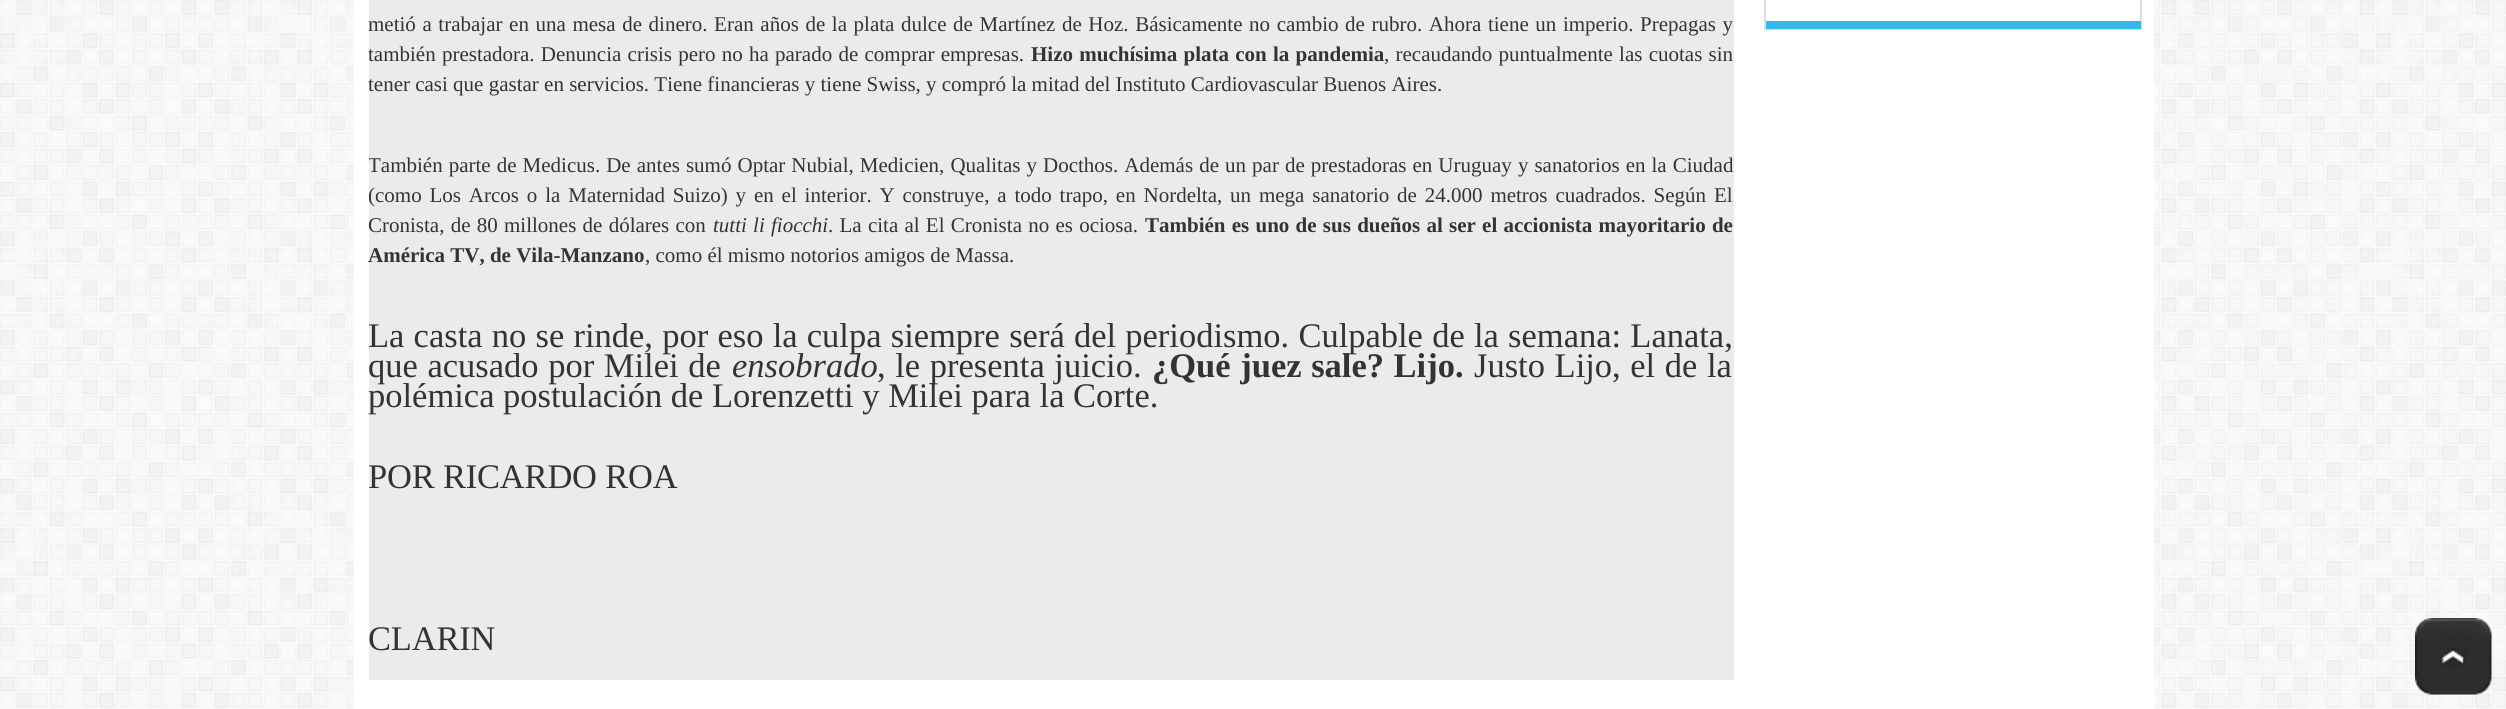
import math
import cairo

surface = cairo.ImageSurface(cairo.FORMAT_RGB24, 2506, 709)
cr = cairo.Context(surface)
options = cairo.FontOptions()
options.set_hint_metrics(cairo.HINT_METRICS_OFF)
options.set_hint_style(cairo.HINT_STYLE_NONE)
cr.set_font_options(options)
cr.set_miter_limit(4)


def rgb(code):
    cr.set_source_rgb(*(v / 255 for v in bytes.fromhex(code[-6:])))


def tracked(x, y, s, letter, word):
    cr.move_to(x, y)
    for ch in s:
        cr.show_text(ch)
        cr.rel_move_to(letter + word * (ch == ' '), 0)


def image(path, x, y, w, h):
    cr.save()
    cr.set_source_surface(cairo.ImageSurface.create_from_png(path), x, y)
    cr.rectangle(x, y, w, h)
    cr.fill()
    cr.restore()


rgb("#ffffff")
cr.paint()
image("img/1.png", 0, 0, 2506, 709)
rgb("#ffffff")
cr.rectangle(354, 0, 1800, 709)
cr.fill()
rgb("#ebebeb")
cr.rectangle(369, 0, 1365, 680)
cr.fill()
cr.rectangle(1765, -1, 376, 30)
rgb("#dddddd")
cr.stroke()
rgb("#37b8eb")
cr.rectangle(1766, 21, 375, 8)
cr.fill()
image("img/2.png", 2415, 618, 77, 77)
cr.select_font_face("Liberation Serif")
cr.set_font_size(21)
rgb("#333333")
tracked(368, 31, "metió a trabajar en una mesa de dinero. Eran años de la plata dulce de Martínez de Hoz. Básicamente no cambio de rubro. Ahora tiene un imperio. Prepagas y", 0, 1.35)
tracked(368, 61, "también prestadora. Denuncia crisis pero no ha parado de comprar empresas.", 0, 1)
cr.select_font_face("Liberation Serif", cairo.FONT_SLANT_NORMAL, cairo.FONT_WEIGHT_BOLD)
tracked(1031, 61, "Hizo muchísima plata con la pandemia", 0, 1)
cr.select_font_face("Liberation Serif")
tracked(1384, 61, ", recaudando puntualmente las cuotas sin", 0, 1)
cr.move_to(368, 91)
cr.show_text("tener casi que gastar en servicios. Tiene financieras y tiene Swiss, y compró la mitad del Instituto Cardiovascular Buenos Aires.")
cr.save()
cr.rectangle(369, 0, 1365, 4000)
cr.clip()
tracked(368, 172, "También parte de Medicus. De antes sumó Optar Nubial, Medicien, Qualitas y Docthos. Además de un par de prestadoras en Uruguay y sanatorios en la Ciudad", 0, 0.8)
cr.restore()
tracked(368, 202, "(como Los Arcos o la Maternidad Suizo) y en el interior. Y construye, a todo trapo, en Nordelta, un mega sanatorio de 24.000 metros cuadrados. Según El", 0, 2.6)
tracked(368, 232, "Cronista, de 80 millones de dólares con", 0, 1)
cr.select_font_face("Liberation Serif", cairo.FONT_SLANT_ITALIC)
tracked(713, 232, "tutti li fiocchi", 0, 1)
cr.select_font_face("Liberation Serif")
tracked(828, 232, ". La cita al El Cronista no es ociosa.", 0, 1)
cr.select_font_face("Liberation Serif", cairo.FONT_SLANT_NORMAL, cairo.FONT_WEIGHT_BOLD)
tracked(1145, 232, "También es uno de sus dueños al ser el accionista mayoritario de", 0, 1)
cr.move_to(368, 262)
cr.show_text("América TV, de Vila-Manzano")
cr.select_font_face("Liberation Serif")
cr.move_to(645, 262)
cr.show_text(", como él mismo notorios amigos de Massa.")
cr.set_font_size(34.5)
tracked(368, 347, "La casta no se rinde, por eso la culpa siempre será del periodismo. Culpable de la semana: Lanata,", 0, 0.6)
tracked(368, 377, "que acusado por Milei de", 0, 1)
cr.select_font_face("Liberation Serif", cairo.FONT_SLANT_ITALIC)
cr.move_to(732, 377)
cr.show_text("ensobrado")
cr.select_font_face("Liberation Serif")
tracked(877, 377, ", le presenta juicio.", 0, 1)
cr.select_font_face("Liberation Serif", cairo.FONT_SLANT_NORMAL, cairo.FONT_WEIGHT_BOLD)
tracked(1152, 377, "¿Qué juez sale? Lijo.", 0, 1)
cr.select_font_face("Liberation Serif")
tracked(1474, 377, "Justo Lijo, el de la", 0, 1)
cr.move_to(368, 407)
cr.show_text("polémica postulación de Lorenzetti y Milei para la Corte.")
tracked(368, 488, "POR RICARDO ROA", -0.2, 0)
tracked(368, 650, "CLARIN", -0.2, 0)
surface.write_to_png("page.png")
